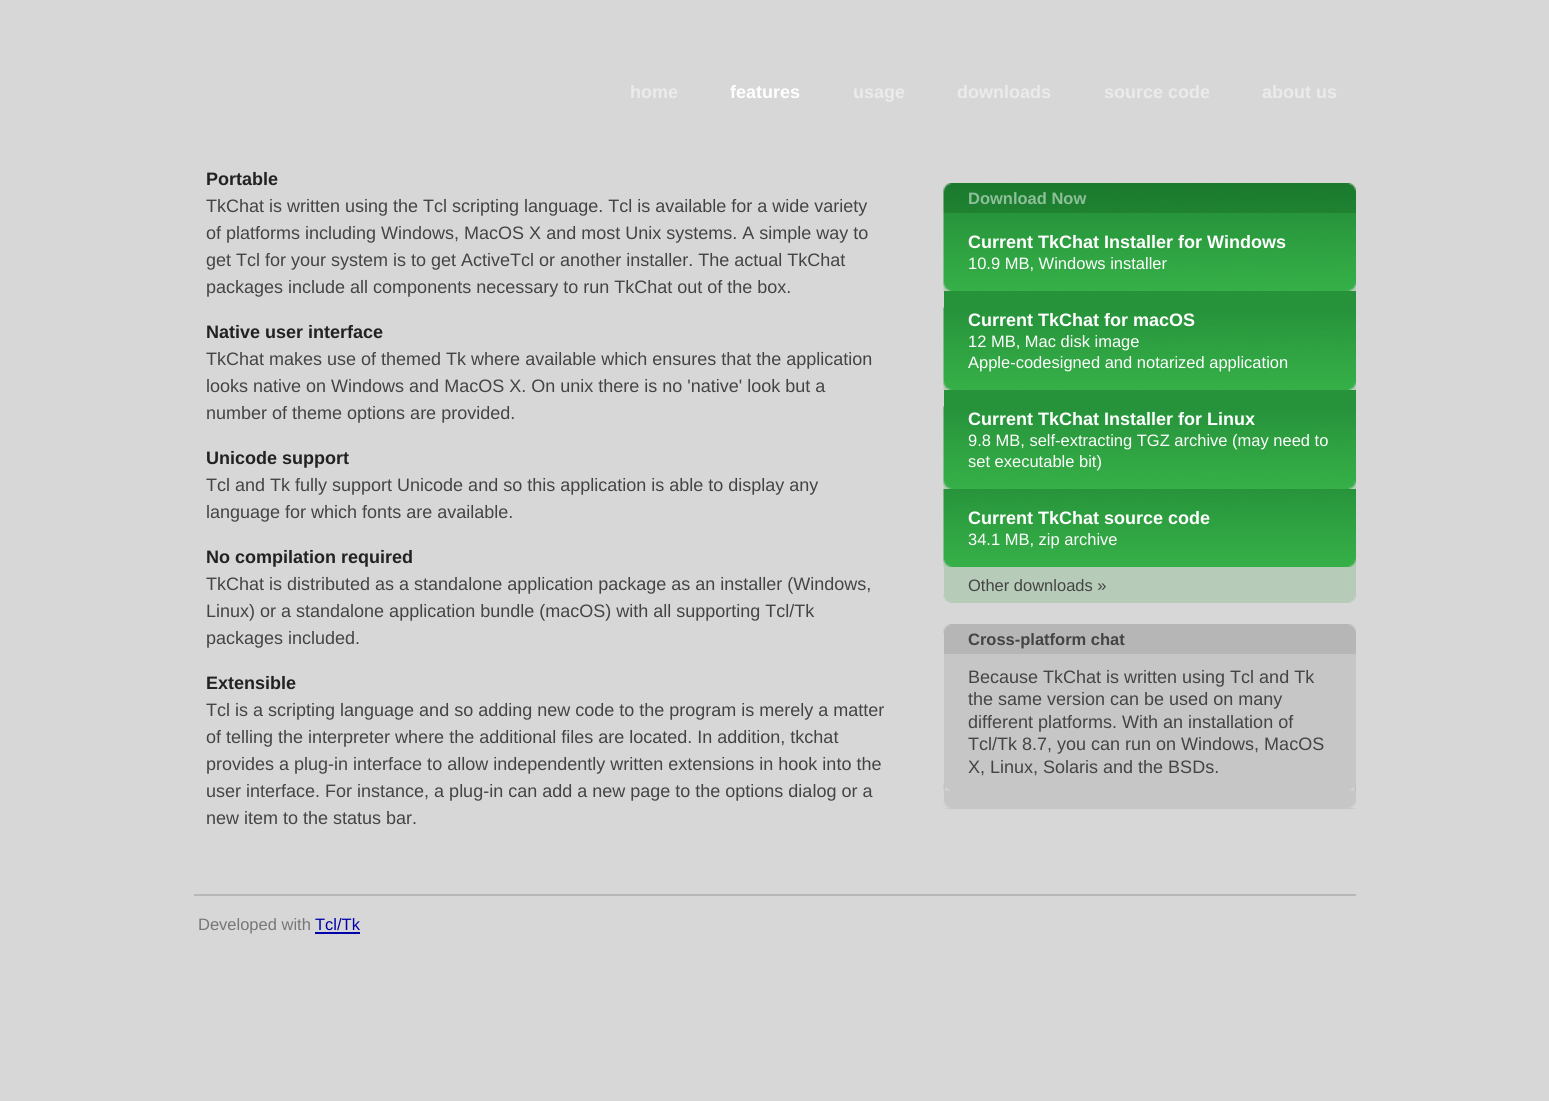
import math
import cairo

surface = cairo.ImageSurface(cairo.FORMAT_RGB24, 1549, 1101)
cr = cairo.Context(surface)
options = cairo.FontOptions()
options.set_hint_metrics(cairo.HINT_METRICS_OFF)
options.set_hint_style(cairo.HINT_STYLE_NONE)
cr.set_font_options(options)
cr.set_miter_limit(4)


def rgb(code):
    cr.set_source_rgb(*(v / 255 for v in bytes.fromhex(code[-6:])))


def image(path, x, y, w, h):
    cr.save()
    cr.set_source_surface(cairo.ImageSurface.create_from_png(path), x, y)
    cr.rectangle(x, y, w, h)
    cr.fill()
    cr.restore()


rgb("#d7d7d7")
cr.paint()
image("img/1.png", 943, 596, 1, 7)
image("img/2.png", 943, 183, 413, 30)
image("img/3.png", 943, 213, 413, 78)
rgb("#26933b")
cr.rectangle(944, 291, 412, 17)
cr.fill()
image("img/4.png", 943, 307, 413, 83)
cr.rectangle(944, 390, 412, 17)
cr.fill()
image("img/4.png", 943, 406, 413, 83)
image("img/3.png", 943, 489, 413, 78)
rgb("#b6cbb8")
cr.rectangle(944, 567, 412, 29)
cr.fill()
image("img/5.png", 943, 595, 413, 8)
rgb("#c6c6c6")
cr.rectangle(944, 654, 412, 155)
cr.fill()
image("img/6.png", 943, 801, 413, 8)
rgb("#b6b6b6")
cr.rectangle(944, 624, 412, 30)
cr.fill()
image("img/7.png", 943, 624, 413, 9)
image("img/8.png", 943, 783, 413, 8)
rgb("#b7b7b7")
cr.rectangle(194, 894, 1162, 2)
cr.fill()
rgb("#0000aa")
cr.rectangle(315, 932, 45, 2)
cr.fill()
cr.select_font_face("Liberation Sans", cairo.FONT_SLANT_NORMAL, cairo.FONT_WEIGHT_BOLD)
cr.set_font_size(18)
rgb("#ebebeb")
cr.move_to(630, 98)
cr.show_text("home")
rgb("#ffffff")
cr.move_to(730, 98)
cr.show_text("features")
rgb("#ebebeb")
for x, y, s in [
    (853, 98, "usage"),
    (957, 98, "downloads"),
    (1104, 98, "source code"),
    (1262, 98, "about us"),
]:
    cr.move_to(x, y)
    cr.show_text(s)
rgb("#222222")
cr.move_to(206, 185)
cr.show_text("Portable")
cr.select_font_face("Liberation Sans")
rgb("#444444")
for x, y, s in [
    (206, 212, "TkChat is written using the Tcl scripting language. Tcl is available for a wide variety"),
    (206, 239, "of platforms including Windows, MacOS X and most Unix systems. A simple way to"),
    (206, 266, "get Tcl for your system is to get ActiveTcl or another installer. The actual TkChat"),
    (206, 293, "packages include all components necessary to run TkChat out of the box."),
]:
    cr.move_to(x, y)
    cr.show_text(s)
cr.select_font_face("Liberation Sans", cairo.FONT_SLANT_NORMAL, cairo.FONT_WEIGHT_BOLD)
rgb("#222222")
cr.move_to(206, 338)
cr.show_text("Native user interface")
cr.select_font_face("Liberation Sans")
rgb("#444444")
for x, y, s in [
    (206, 365, "TkChat makes use of themed Tk where available which ensures that the application"),
    (206, 392, "looks native on Windows and MacOS X. On unix there is no 'native' look but a"),
    (206, 419, "number of theme options are provided."),
]:
    cr.move_to(x, y)
    cr.show_text(s)
cr.select_font_face("Liberation Sans", cairo.FONT_SLANT_NORMAL, cairo.FONT_WEIGHT_BOLD)
rgb("#222222")
cr.move_to(206, 464)
cr.show_text("Unicode support")
cr.select_font_face("Liberation Sans")
rgb("#444444")
cr.move_to(206, 491)
cr.show_text("Tcl and Tk fully support Unicode and so this application is able to display any")
cr.move_to(206, 518)
cr.show_text("language for which fonts are available.")
cr.select_font_face("Liberation Sans", cairo.FONT_SLANT_NORMAL, cairo.FONT_WEIGHT_BOLD)
rgb("#222222")
cr.move_to(206, 563)
cr.show_text("No compilation required")
cr.select_font_face("Liberation Sans")
rgb("#444444")
for x, y, s in [
    (206, 590, "TkChat is distributed as a standalone application package as an installer (Windows,"),
    (206, 617, "Linux) or a standalone application bundle (macOS) with all supporting Tcl/Tk"),
    (206, 644, "packages included."),
]:
    cr.move_to(x, y)
    cr.show_text(s)
cr.select_font_face("Liberation Sans", cairo.FONT_SLANT_NORMAL, cairo.FONT_WEIGHT_BOLD)
rgb("#222222")
cr.move_to(206, 689)
cr.show_text("Extensible")
cr.select_font_face("Liberation Sans")
rgb("#444444")
for x, y, s in [
    (206, 716, "Tcl is a scripting language and so adding new code to the program is merely a matter"),
    (206, 743, "of telling the interpreter where the additional files are located. In addition, tkchat"),
    (206, 770, "provides a plug-in interface to allow independently written extensions in hook into the"),
    (206, 797, "user interface. For instance, a plug-in can add a new page to the options dialog or a"),
    (206, 824, "new item to the status bar."),
]:
    cr.move_to(x, y)
    cr.show_text(s)
cr.select_font_face("Liberation Sans", cairo.FONT_SLANT_NORMAL, cairo.FONT_WEIGHT_BOLD)
cr.set_font_size(16.5)
rgb("#8ebf98")
cr.move_to(968, 204)
cr.show_text("Download Now")
cr.set_font_size(18)
rgb("#ffffff")
cr.move_to(968, 248)
cr.show_text("Current TkChat Installer for Windows")
cr.select_font_face("Liberation Sans")
cr.set_font_size(16.5)
cr.move_to(968, 269)
cr.show_text("10.9 MB, Windows installer")
cr.select_font_face("Liberation Sans", cairo.FONT_SLANT_NORMAL, cairo.FONT_WEIGHT_BOLD)
cr.set_font_size(18)
cr.move_to(968, 326)
cr.show_text("Current TkChat for macOS")
cr.select_font_face("Liberation Sans")
cr.set_font_size(16.5)
cr.move_to(968, 347)
cr.show_text("12 MB, Mac disk image")
cr.move_to(968, 368)
cr.show_text("Apple-codesigned and notarized application")
cr.select_font_face("Liberation Sans", cairo.FONT_SLANT_NORMAL, cairo.FONT_WEIGHT_BOLD)
cr.set_font_size(18)
cr.move_to(968, 425)
cr.show_text("Current TkChat Installer for Linux")
cr.select_font_face("Liberation Sans")
cr.set_font_size(16.5)
cr.move_to(968, 446)
cr.show_text("9.8 MB, self-extracting TGZ archive (may need to")
cr.move_to(968, 467)
cr.show_text("set executable bit)")
cr.select_font_face("Liberation Sans", cairo.FONT_SLANT_NORMAL, cairo.FONT_WEIGHT_BOLD)
cr.set_font_size(18)
cr.move_to(968, 524)
cr.show_text("Current TkChat source code")
cr.select_font_face("Liberation Sans")
cr.set_font_size(16.5)
cr.move_to(968, 545)
cr.show_text("34.1 MB, zip archive")
rgb("#444444")
cr.move_to(968, 591)
cr.show_text("Other downloads »")
cr.select_font_face("Liberation Sans", cairo.FONT_SLANT_NORMAL, cairo.FONT_WEIGHT_BOLD)
cr.move_to(968, 645)
cr.show_text("Cross-platform chat")
cr.select_font_face("Liberation Sans")
cr.set_font_size(18)
for x, y, s in [
    (968, 683, "Because TkChat is written using Tcl and Tk"),
    (968, 705, "the same version can be used on many"),
    (968, 728, "different platforms. With an installation of"),
    (968, 750, "Tcl/Tk 8.7, you can run on Windows, MacOS"),
    (968, 773, "X, Linux, Solaris and the BSDs."),
]:
    cr.move_to(x, y)
    cr.show_text(s)
cr.set_font_size(16.5)
rgb("#777777")
cr.move_to(198, 930)
cr.show_text("Developed with")
rgb("#0000aa")
cr.move_to(315, 930)
cr.show_text("Tcl/Tk")
surface.write_to_png("page.png")
